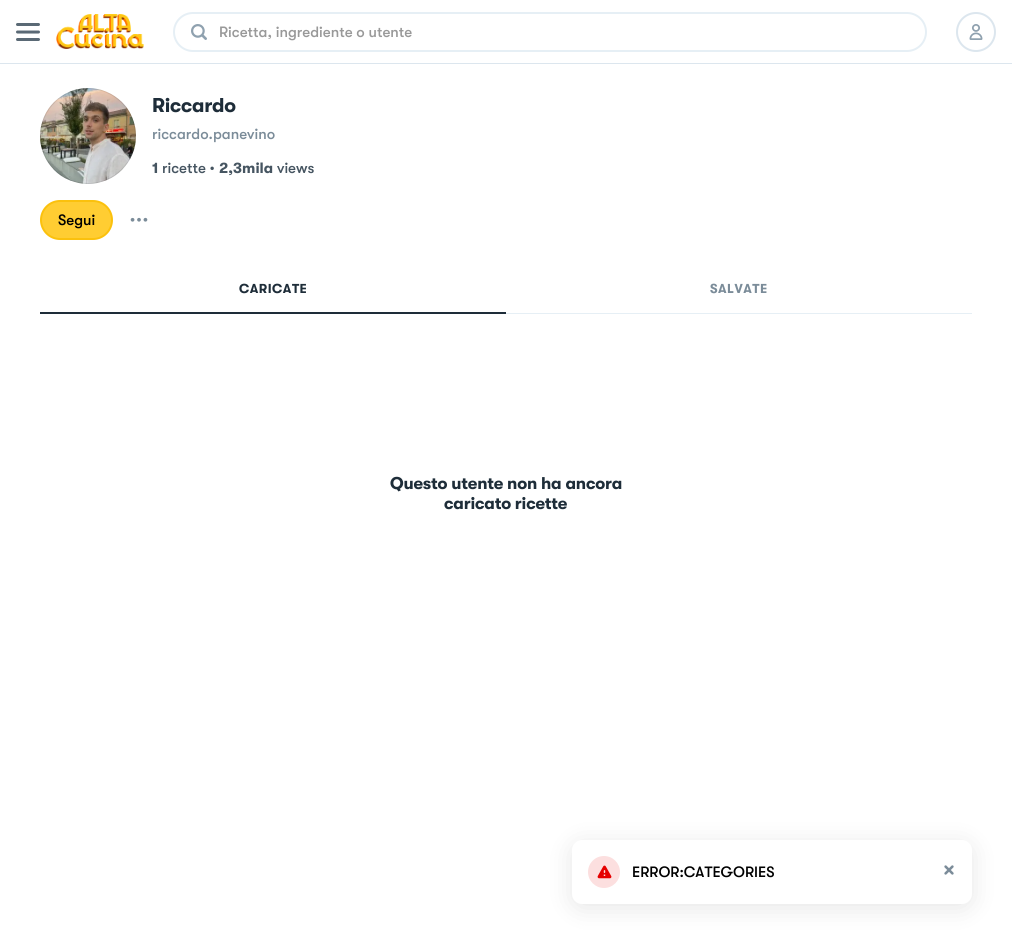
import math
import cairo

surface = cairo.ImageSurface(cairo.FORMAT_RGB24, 1012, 944)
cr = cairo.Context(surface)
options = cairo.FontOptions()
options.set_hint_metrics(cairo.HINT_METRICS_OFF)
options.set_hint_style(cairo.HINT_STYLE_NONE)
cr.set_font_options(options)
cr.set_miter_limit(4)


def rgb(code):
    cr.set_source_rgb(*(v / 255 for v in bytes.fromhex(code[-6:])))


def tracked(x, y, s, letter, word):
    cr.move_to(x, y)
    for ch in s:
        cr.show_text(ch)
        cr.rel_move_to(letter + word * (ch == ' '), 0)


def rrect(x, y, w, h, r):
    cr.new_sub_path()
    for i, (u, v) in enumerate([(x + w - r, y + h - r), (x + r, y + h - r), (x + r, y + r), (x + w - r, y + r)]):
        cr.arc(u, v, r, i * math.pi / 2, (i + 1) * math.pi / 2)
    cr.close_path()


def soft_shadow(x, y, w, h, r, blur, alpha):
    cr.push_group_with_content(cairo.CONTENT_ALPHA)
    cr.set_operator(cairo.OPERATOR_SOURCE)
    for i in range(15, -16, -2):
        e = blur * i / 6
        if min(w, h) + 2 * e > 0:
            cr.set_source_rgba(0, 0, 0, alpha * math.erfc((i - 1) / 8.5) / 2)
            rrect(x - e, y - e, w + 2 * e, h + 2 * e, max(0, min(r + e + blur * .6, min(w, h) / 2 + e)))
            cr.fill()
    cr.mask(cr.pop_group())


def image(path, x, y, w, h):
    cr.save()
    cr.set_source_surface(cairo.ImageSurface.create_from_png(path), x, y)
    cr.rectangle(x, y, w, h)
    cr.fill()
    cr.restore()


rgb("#ffffff")
cr.paint()
rgb("#dce6ee")
cr.rectangle(0, 63, 1012, 1)
cr.fill()
image("img/1.png", 16, 23, 24, 18)
image("img/2.png", 56, 14, 88, 35)
rrect(174, 13, 752, 38, 19)
rgb("#e6eff5")
cr.stroke()
image("img/3.png", 191, 24, 16, 16)
cr.arc(976, 32, 19, 0, 2 * math.pi)
rgb("#dce6ee")
cr.stroke()
image("img/4.png", 969, 24, 14, 16)
image("img/5.png", 40, 88, 96, 96)
cr.arc(88, 136, 47.5, 0, 2 * math.pi)
cr.set_source_rgba(0, 0, 0, 0.1)
cr.set_line_width(1)
cr.stroke()
rgb("#ffcd32")
rrect(41, 201, 71, 38, 19)
cr.fill_preserve()
rgb("#fbc10d")
cr.set_line_width(2)
cr.stroke()
image("img/6.png", 130, 217, 18, 5)
rgb("#1e2d39")
cr.rectangle(40, 312, 466, 2)
cr.fill()
rgb("#e6eff5")
cr.rectangle(506, 313, 466, 1)
cr.fill()
rgb("#000000")
soft_shadow(572, 844, 400, 64, 10, 12, 0.1)
rgb("#ffffff")
rrect(572, 840, 400, 64, 10)
cr.fill()
rgb("#fcdfdf")
cr.arc(604, 872, 16, 0, 2 * math.pi)
cr.fill()
image("img/7.png", 597, 865, 15, 14)
image("img/8.png", 944, 865, 10, 10)
cr.select_font_face("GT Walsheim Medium")
cr.set_font_size(15)
rgb("#999999")
cr.move_to(219, 37)
cr.show_text("Ricetta, ingrediente o utente")
cr.select_font_face("GT Walsheim", cairo.FONT_SLANT_NORMAL, cairo.FONT_WEIGHT_BOLD)
cr.set_font_size(20)
rgb("#1e2d39")
tracked(152, 112, "Riccardo", -0.25, 0)
cr.select_font_face("GT Walsheim Medium")
cr.set_font_size(15)
rgb("#7b8c99")
cr.move_to(152, 139)
cr.show_text("riccardo.panevino")
cr.select_font_face("GT Walsheim", cairo.FONT_SLANT_NORMAL, cairo.FONT_WEIGHT_BOLD)
rgb("#465561")
cr.move_to(152, 173)
cr.show_text("1")
cr.select_font_face("GT Walsheim Medium")
cr.move_to(162, 173)
cr.show_text("ricette •")
cr.select_font_face("GT Walsheim", cairo.FONT_SLANT_NORMAL, cairo.FONT_WEIGHT_BOLD)
cr.move_to(219, 173)
cr.show_text("2,3mila")
cr.select_font_face("GT Walsheim Medium")
cr.move_to(277, 173)
cr.show_text("views")
rgb("#000000")
cr.move_to(58, 225)
cr.show_text("Segui")
cr.select_font_face("GT Walsheim", cairo.FONT_SLANT_NORMAL, cairo.FONT_WEIGHT_BOLD)
cr.set_font_size(13)
rgb("#1e2d39")
tracked(239, 293, "CARICATE", 0.5, 0)
rgb("#7b8c99")
tracked(710, 293, "SALVATE", 0.5, 0)
cr.set_font_size(17)
rgb("#1e2d39")
tracked(390, 489, "Questo utente non ha ancora", -0.2, 0)
tracked(444, 509, "caricato ricette", -0.2, 0)
cr.select_font_face("GT Walsheim Medium")
cr.set_font_size(15)
rgb("#000000")
cr.move_to(632, 877)
cr.show_text("ERROR:CATEGORIES")
surface.write_to_png("page.png")
